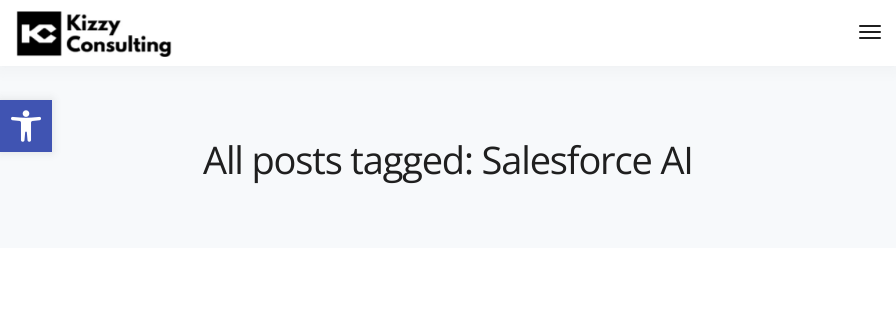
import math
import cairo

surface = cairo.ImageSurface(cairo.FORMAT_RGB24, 896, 310)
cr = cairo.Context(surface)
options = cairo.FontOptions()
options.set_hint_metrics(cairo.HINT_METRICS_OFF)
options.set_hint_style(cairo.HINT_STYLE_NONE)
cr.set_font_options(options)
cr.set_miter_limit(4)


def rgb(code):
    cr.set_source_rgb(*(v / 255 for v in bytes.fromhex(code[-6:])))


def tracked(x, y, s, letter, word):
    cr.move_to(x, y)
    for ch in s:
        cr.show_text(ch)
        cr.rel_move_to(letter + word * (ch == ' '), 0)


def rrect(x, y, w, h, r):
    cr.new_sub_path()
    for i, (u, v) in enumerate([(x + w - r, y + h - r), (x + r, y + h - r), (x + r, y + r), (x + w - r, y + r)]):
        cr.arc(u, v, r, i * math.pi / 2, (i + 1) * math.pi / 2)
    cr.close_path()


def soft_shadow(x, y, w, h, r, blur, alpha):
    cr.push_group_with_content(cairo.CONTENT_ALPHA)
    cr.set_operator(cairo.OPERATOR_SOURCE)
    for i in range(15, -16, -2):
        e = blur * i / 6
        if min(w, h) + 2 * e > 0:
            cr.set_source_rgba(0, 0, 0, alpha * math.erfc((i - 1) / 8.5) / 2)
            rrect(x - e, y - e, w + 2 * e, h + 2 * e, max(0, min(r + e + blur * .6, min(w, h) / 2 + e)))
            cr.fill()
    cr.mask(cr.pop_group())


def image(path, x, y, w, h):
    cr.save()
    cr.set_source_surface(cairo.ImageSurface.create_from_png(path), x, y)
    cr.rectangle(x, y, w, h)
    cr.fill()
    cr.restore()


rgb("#ffffff")
cr.paint()
rgb("#f7f9fb")
cr.rectangle(0, 66, 896, 182)
cr.fill()
rgb("#000000")
soft_shadow(0, 0, 896, 66, 0, 10, 0.05)
rgb("#ffffff")
cr.rectangle(0, 0, 896, 66)
cr.fill()
image("img/1.png", 16, 11, 156, 46)
rgb("#1f1f1f")
rrect(859, 25, 22, 2, 1)
cr.fill()
rrect(859, 31, 22, 2, 1)
cr.fill()
rrect(859, 37, 22, 2, 1)
cr.fill()
rgb("#000000")
soft_shadow(0, 100, 52, 52, 0, 5, 0.1)
rgb("#4054b2")
cr.rectangle(0, 100, 52, 52)
cr.fill()
image("img/2.png", 11, 110, 30, 32)
cr.select_font_face("Open Sans")
cr.set_font_size(38)
rgb("#1f1f1f")
tracked(203, 174, "All posts tagged: Salesforce AI", -1.15, 0)
surface.write_to_png("page.png")
